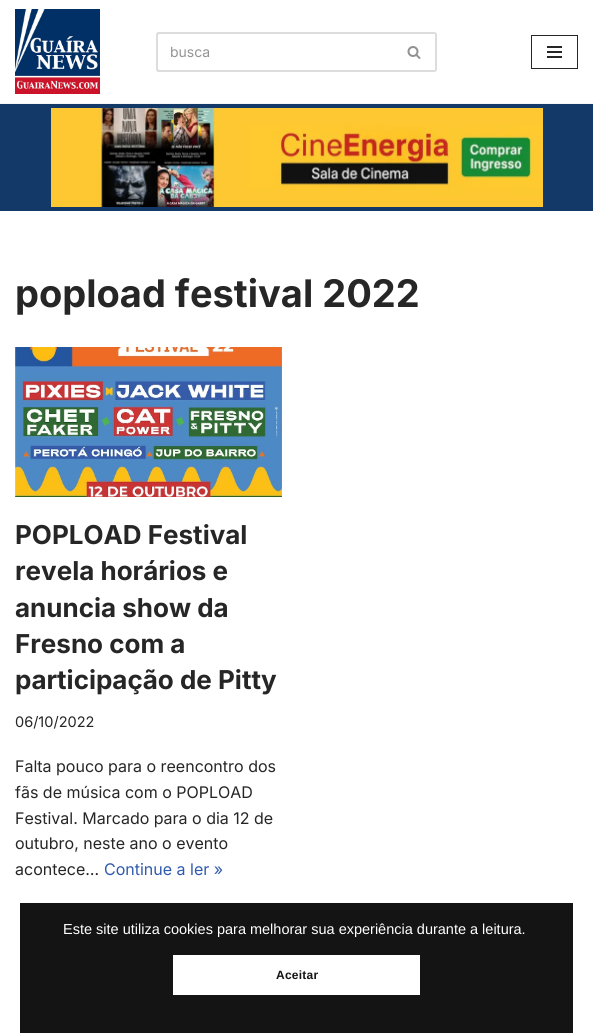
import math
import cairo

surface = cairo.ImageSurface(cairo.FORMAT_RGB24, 593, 1035)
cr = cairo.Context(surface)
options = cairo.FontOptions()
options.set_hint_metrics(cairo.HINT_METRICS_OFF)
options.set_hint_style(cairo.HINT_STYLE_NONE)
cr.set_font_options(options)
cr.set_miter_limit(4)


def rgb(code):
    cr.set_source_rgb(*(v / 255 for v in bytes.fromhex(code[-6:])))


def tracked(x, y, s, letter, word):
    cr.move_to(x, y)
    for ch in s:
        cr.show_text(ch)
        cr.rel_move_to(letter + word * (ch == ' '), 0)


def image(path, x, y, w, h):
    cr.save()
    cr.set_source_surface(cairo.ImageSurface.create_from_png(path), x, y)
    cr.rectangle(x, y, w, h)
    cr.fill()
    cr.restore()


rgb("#ffffff")
cr.paint()
rgb("#f4f5f7")
cr.rectangle(0, 103, 593, 1)
cr.fill()
image("img/1.png", 15, 9, 85, 85)
rgb("#dddddd")
cr.set_fill_rule(cairo.FILL_RULE_EVEN_ODD)
cr.new_path()
cr.move_to(159, 32)
cr.line_to(392, 32)
cr.line_to(392, 72)
cr.line_to(159, 72)
cr.curve_to(157, 72, 156, 71, 156, 69)
cr.line_to(156, 35)
cr.curve_to(156, 33, 157, 32, 159, 32)
cr.close_path()
cr.move_to(159, 34)
cr.line_to(392, 34)
cr.line_to(392, 70)
cr.line_to(159, 70)
cr.line_to(158, 69)
cr.line_to(158, 35)
cr.close_path()
cr.fill()
cr.new_path()
cr.move_to(392, 32)
cr.line_to(434, 32)
cr.curve_to(436, 32, 437, 33, 437, 35)
cr.line_to(437, 69)
cr.curve_to(437, 71, 436, 72, 434, 72)
cr.line_to(392, 72)
cr.close_path()
cr.move_to(392, 34)
cr.line_to(434, 34)
cr.curve_to(435, 34, 435, 34, 435, 35)
cr.line_to(435, 69)
cr.curve_to(435, 70, 435, 70, 434, 70)
cr.line_to(392, 70)
cr.close_path()
cr.fill()
image("img/2.png", 407, 46, 14, 13)
cr.rectangle(531.5, 35.5, 46, 33)
rgb("#272626")
cr.set_line_width(1)
cr.stroke()
for x, y, w, h, color in [
    (547, 46, 15, 2, "#272626"),
    (547, 51, 15, 2, "#272626"),
    (547, 56, 15, 2, "#272626"),
    (0, 104, 593, 107, "#133968"),
]:
    rgb(color)
    cr.rectangle(x, y, w, h)
    cr.fill()
image("img/3.png", 51, 108, 492, 99)
image("img/4.png", 15, 347, 267, 150)
rgb("#141414")
cr.rectangle(20, 903, 553, 130)
cr.fill()
rgb("#ffffff")
cr.rectangle(173, 955, 247, 40)
cr.fill()
cr.select_font_face("Inter")
cr.set_font_size(14)
rgb("#939393")
cr.move_to(170, 57)
cr.show_text("busca")
cr.select_font_face("Inter", cairo.FONT_SLANT_NORMAL, cairo.FONT_WEIGHT_BOLD)
cr.set_font_size(38)
rgb("#272626")
cr.move_to(15, 307)
cr.show_text("popload festival 2022")
cr.set_font_size(26)
for x, y, s in [
    (15, 544, "POPLOAD Festival"),
    (15, 580, "revela horários e"),
    (15, 617, "anuncia show da"),
    (15, 653, "Fresno com a"),
    (15, 689, "participação de Pitty"),
]:
    cr.move_to(x, y)
    cr.show_text(s)
cr.select_font_face("Inter")
cr.set_font_size(14.5)
cr.move_to(15, 727)
cr.show_text("06/10/2022")
cr.set_font_size(16)
for x, y, s in [
    (15, 772, "Falta pouco para o reencontro dos"),
    (15, 798, "fãs de música com o POPLOAD"),
    (15, 824, "Festival. Marcado para o dia 12 de"),
    (15, 849, "outubro, neste ano o evento"),
    (15, 875, "acontece…"),
]:
    cr.move_to(x, y)
    cr.show_text(s)
rgb("#2f5aae")
cr.move_to(104, 875)
cr.show_text("Continue a ler »")
cr.select_font_face("Liberation Sans")
cr.set_font_size(14.5)
rgb("#ffffff")
cr.move_to(63, 934)
cr.show_text("Este site utiliza cookies para melhorar sua experiência durante a leitura.")
cr.select_font_face("Liberation Sans", cairo.FONT_SLANT_NORMAL, cairo.FONT_WEIGHT_BOLD)
cr.set_font_size(12)
rgb("#141414")
tracked(276, 979, "Aceitar", 0.25, 0)
surface.write_to_png("page.png")
